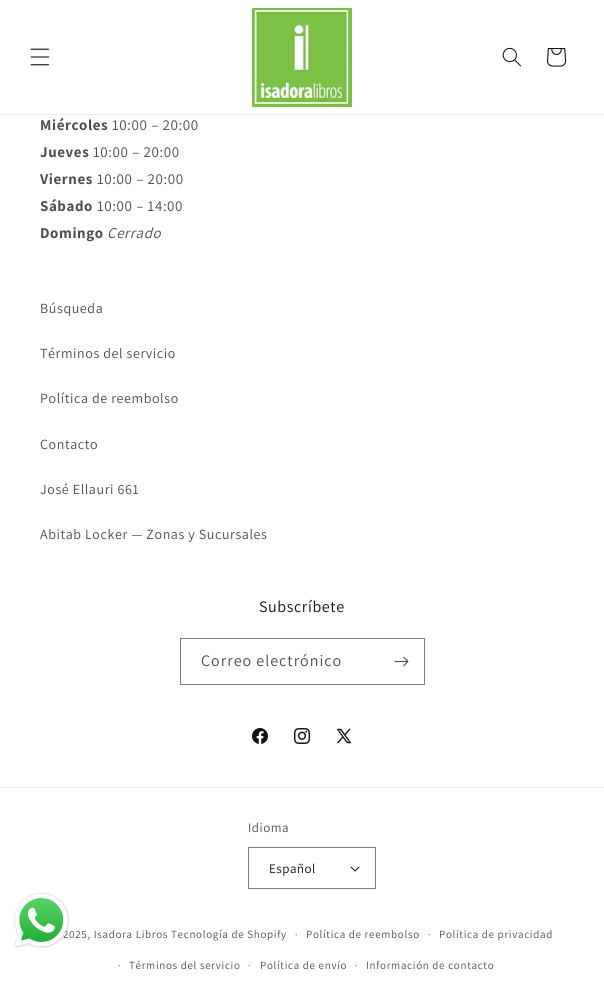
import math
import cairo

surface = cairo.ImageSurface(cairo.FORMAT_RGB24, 604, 999)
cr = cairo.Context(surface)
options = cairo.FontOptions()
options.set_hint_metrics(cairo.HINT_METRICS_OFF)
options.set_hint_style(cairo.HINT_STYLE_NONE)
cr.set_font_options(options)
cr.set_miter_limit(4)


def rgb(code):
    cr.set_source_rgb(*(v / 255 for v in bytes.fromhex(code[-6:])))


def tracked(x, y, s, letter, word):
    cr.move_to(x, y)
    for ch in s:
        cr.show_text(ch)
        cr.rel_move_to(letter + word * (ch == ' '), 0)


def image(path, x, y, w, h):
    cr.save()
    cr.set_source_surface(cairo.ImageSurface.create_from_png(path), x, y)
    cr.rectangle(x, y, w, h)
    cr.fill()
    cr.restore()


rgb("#ffffff")
cr.paint()
rgb("#ececec")
cr.rectangle(0, 114, 604, 1)
cr.fill()
image("img/1.png", 30, 48, 20, 18)
image("img/2.png", 252, 8, 100, 99)
image("img/3.png", 502, 47, 19, 20)
image("img/4.png", 547, 48, 20, 19)
cr.rectangle(180.5, 638.5, 244, 46)
rgb("#7d7d7d")
cr.set_line_width(1)
cr.stroke()
image("img/5.png", 394, 656, 15, 11)
image("img/6.png", 252, 728, 16, 16)
image("img/7.png", 294, 728, 16, 16)
image("img/8.png", 336, 728, 16, 16)
rgb("#ececec")
cr.rectangle(0, 787, 604, 1)
cr.fill()
image("img/9.png", 350, 866, 10, 6)
cr.rectangle(248.5, 847.5, 127, 41)
rgb("#7d7d7d")
cr.stroke()
cr.select_font_face("Assistant", cairo.FONT_SLANT_NORMAL, cairo.FONT_WEIGHT_BOLD)
cr.set_font_size(15)
rgb("#4d4d4d")
tracked(40, 130, "Miércoles", 0.6, 0)
cr.select_font_face("Assistant")
tracked(112, 130, "10:00 – 20:00", 0.6, 0)
cr.select_font_face("Assistant", cairo.FONT_SLANT_NORMAL, cairo.FONT_WEIGHT_BOLD)
tracked(40, 157, "Jueves", 0.6, 0)
cr.select_font_face("Assistant")
tracked(93, 157, "10:00 – 20:00", 0.6, 0)
cr.select_font_face("Assistant", cairo.FONT_SLANT_NORMAL, cairo.FONT_WEIGHT_BOLD)
tracked(40, 184, "Viernes", 0.6, 0)
cr.select_font_face("Assistant")
tracked(97, 184, "10:00 – 20:00", 0.6, 0)
cr.select_font_face("Assistant", cairo.FONT_SLANT_NORMAL, cairo.FONT_WEIGHT_BOLD)
tracked(40, 211, "Sábado", 0.6, 0)
cr.select_font_face("Assistant")
tracked(97, 211, "10:00 – 14:00", 0.6, 0)
cr.select_font_face("Assistant", cairo.FONT_SLANT_NORMAL, cairo.FONT_WEIGHT_BOLD)
tracked(40, 238, "Domingo", 0.6, 0)
cr.select_font_face("Assistant", cairo.FONT_SLANT_ITALIC)
tracked(107, 238, "Cerrado", 0.6, 0)
cr.select_font_face("Assistant")
cr.set_font_size(14)
for x, y, s in [
    (40, 313, "Búsqueda"),
    (40, 358, "Términos del servicio"),
    (40, 403, "Política de reembolso"),
    (40, 449, "Contacto"),
    (40, 494, "José Ellauri 661"),
    (40, 539, "Abitab Locker — Zonas y Sucursales"),
]:
    tracked(x, y, s, 0.6, 0)
cr.set_font_size(16)
rgb("#121212")
tracked(259, 612, "Subscríbete", 0.6, 0)
rgb("#4d4d4d")
tracked(201, 666, "Correo electrónico", 1, 0)
cr.set_font_size(13)
tracked(248, 832, "Idioma", 0.5, 0)
rgb("#121212")
tracked(269, 873, "Español", 0.5, 0)
cr.set_font_size(11)
rgb("#4d4d4d")
tracked(63, 938, "2025, Isadora Libros Tecnología de Shopify", 0.7, 0)
cr.set_font_size(10)
tracked(295, 938, "·", 0.7, 0)
cr.set_font_size(11)
tracked(306, 938, "Política de reembolso", 0.7, 0)
cr.set_font_size(10)
tracked(428, 938, "·", 0.7, 0)
cr.set_font_size(11)
tracked(439, 938, "Política de privacidad", 0.7, 0)
cr.set_font_size(10)
tracked(118, 969, "·", 0.7, 0)
cr.set_font_size(11)
tracked(129, 969, "Términos del servicio", 0.7, 0)
cr.set_font_size(10)
tracked(248, 969, "·", 0.7, 0)
cr.set_font_size(11)
tracked(260, 969, "Política de envío", 0.7, 0)
cr.set_font_size(10)
tracked(355, 969, "·", 0.7, 0)
cr.set_font_size(11)
tracked(366, 969, "Información de contacto", 0.7, 0)
image("img/10.png", 13, 892, 57, 57)
surface.write_to_png("page.png")
